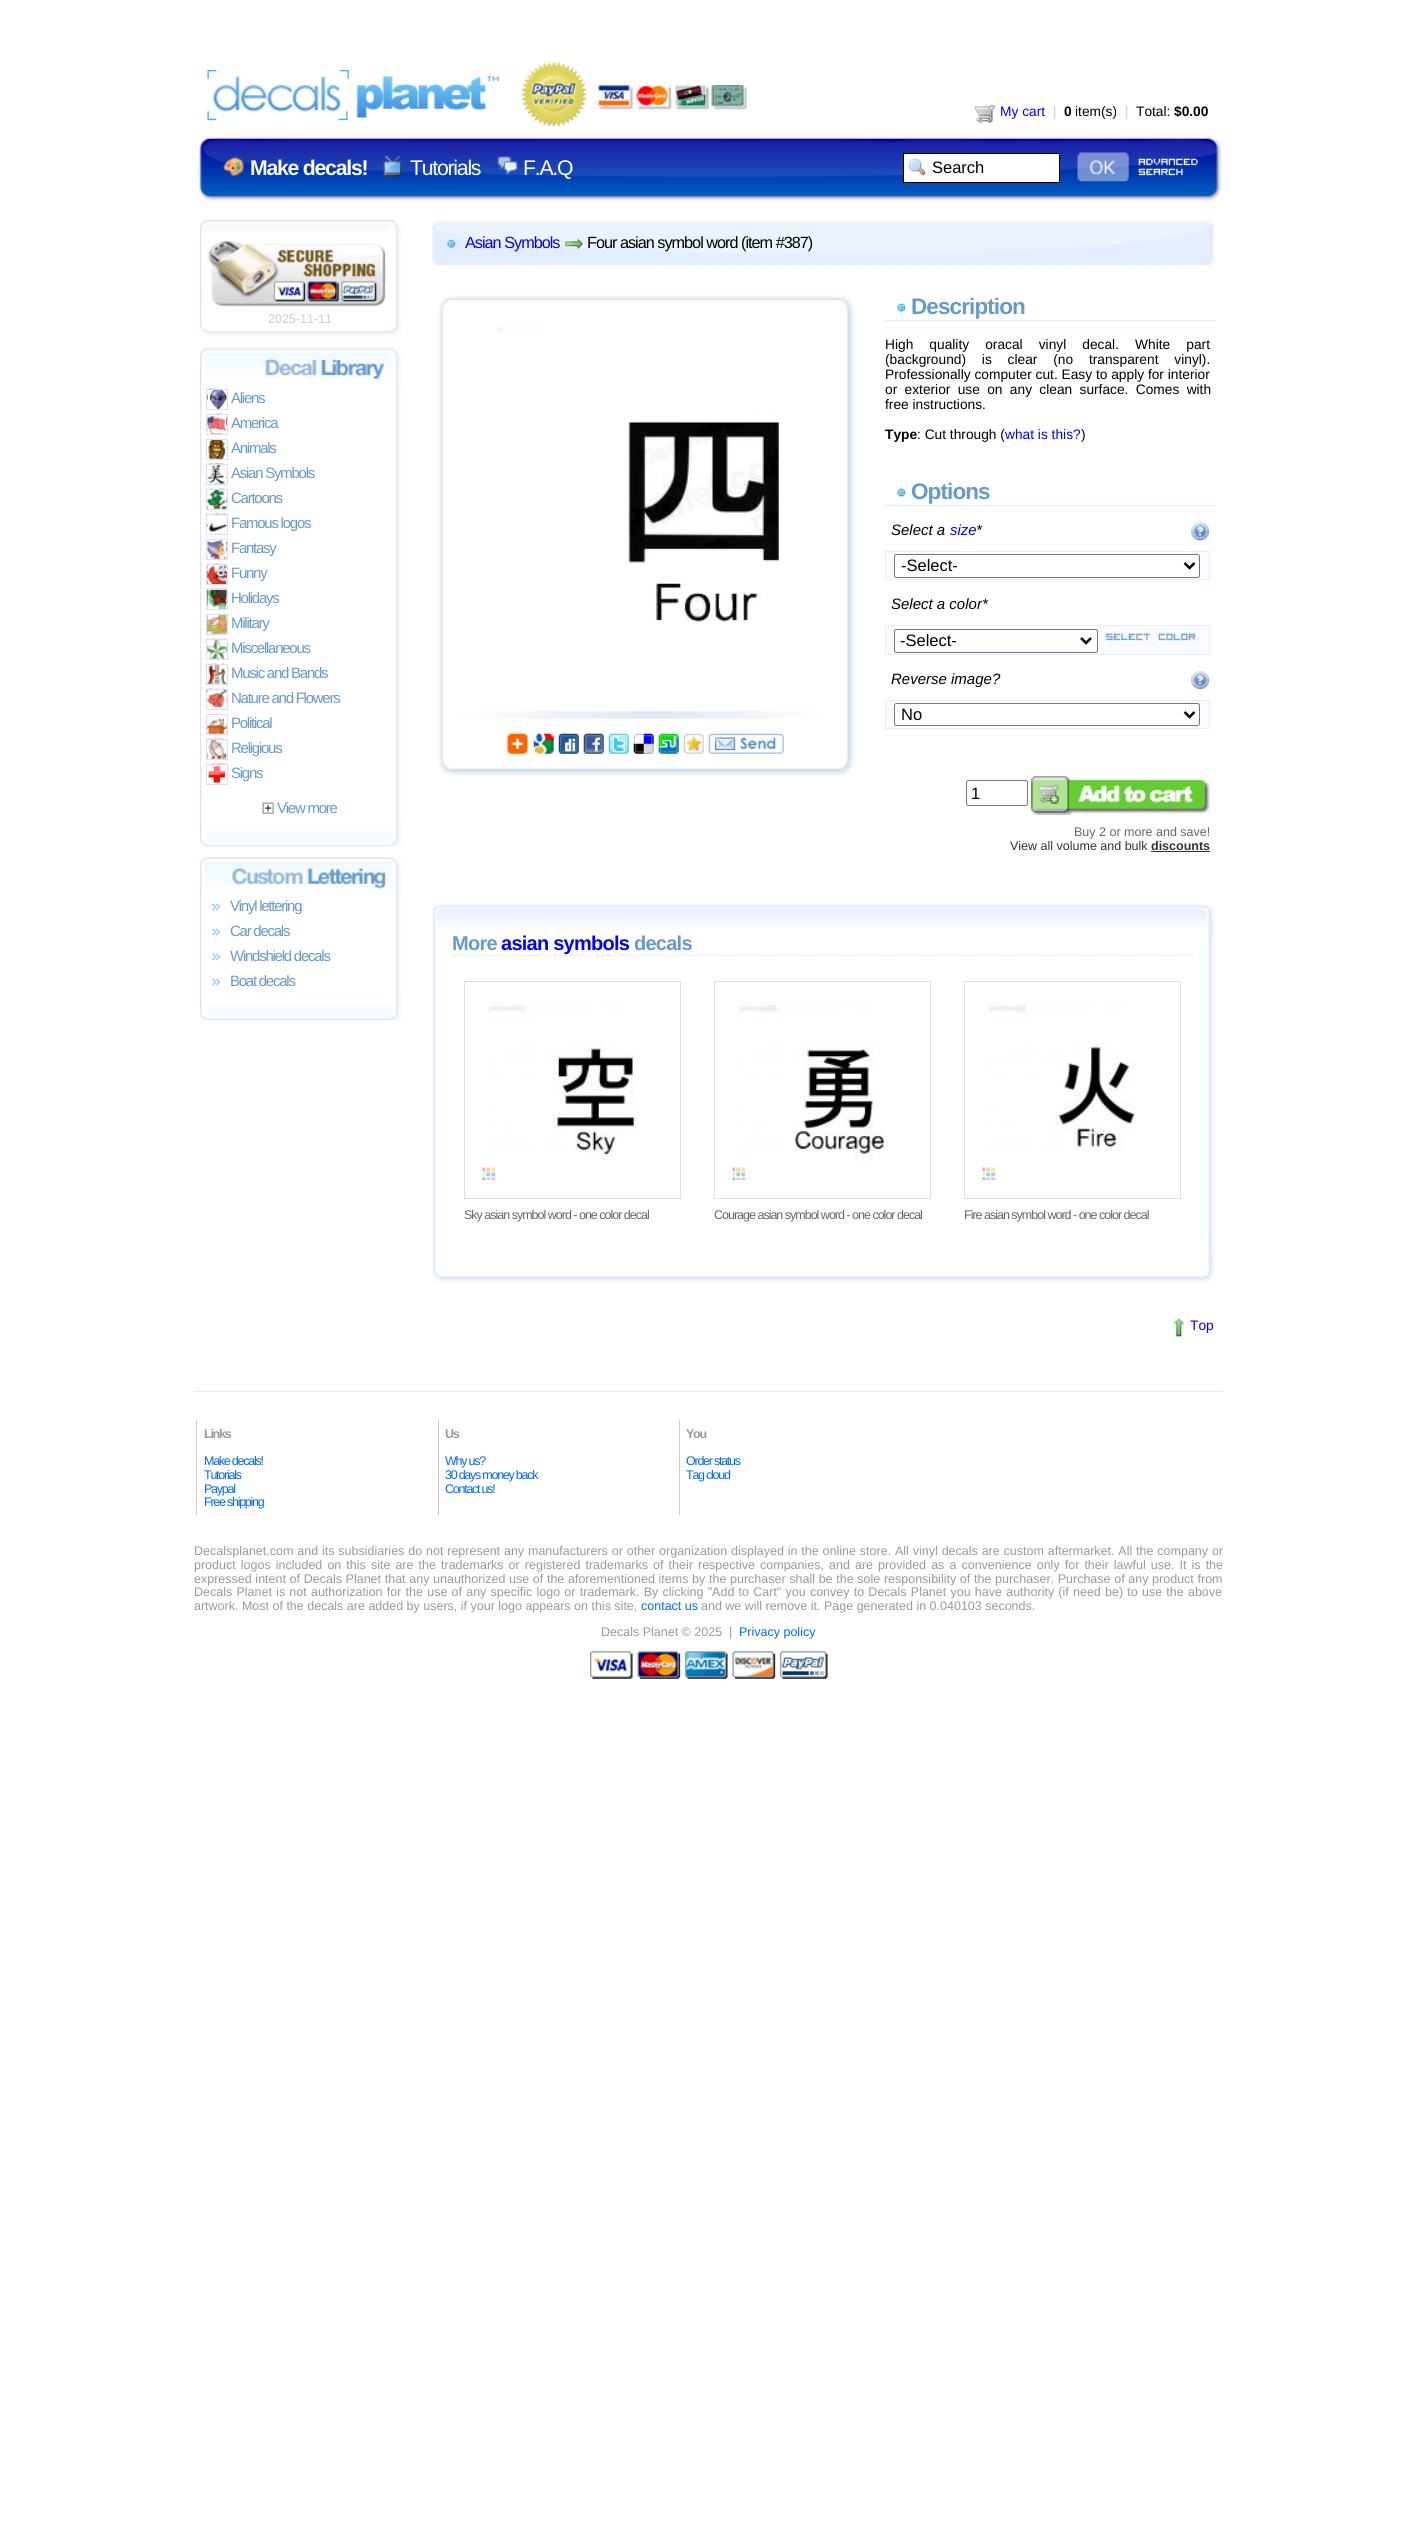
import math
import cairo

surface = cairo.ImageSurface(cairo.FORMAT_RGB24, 1416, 2529)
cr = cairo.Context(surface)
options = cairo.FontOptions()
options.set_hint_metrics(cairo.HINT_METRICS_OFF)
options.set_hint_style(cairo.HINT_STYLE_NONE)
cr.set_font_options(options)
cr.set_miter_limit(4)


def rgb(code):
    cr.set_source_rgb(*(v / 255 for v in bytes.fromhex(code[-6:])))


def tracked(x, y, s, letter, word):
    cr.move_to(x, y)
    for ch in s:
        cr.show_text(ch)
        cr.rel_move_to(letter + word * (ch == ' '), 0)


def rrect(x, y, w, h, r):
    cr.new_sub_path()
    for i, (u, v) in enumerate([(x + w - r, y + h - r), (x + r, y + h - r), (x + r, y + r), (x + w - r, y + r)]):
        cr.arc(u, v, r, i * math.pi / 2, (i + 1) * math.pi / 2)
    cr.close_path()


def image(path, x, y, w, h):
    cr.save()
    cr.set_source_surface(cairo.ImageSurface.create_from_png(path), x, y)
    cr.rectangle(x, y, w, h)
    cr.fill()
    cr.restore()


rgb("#ffffff")
cr.paint()
image("img/1.png", 198, 61, 1024, 140)
image("img/2.png", 975, 104, 20, 19)
image("img/3.png", 223, 157, 21, 20)
image("img/4.png", 383, 156, 19, 21)
image("img/5.png", 497, 156, 21, 20)
rgb("#ffffff")
cr.rectangle(904, 154, 155, 28)
cr.fill()
image("img/6.png", 908, 158, 18, 19)
cr.rectangle(903.5, 153.5, 156, 29)
rgb("#000000")
cr.set_line_width(1)
cr.stroke()
image("img/7.png", 1077, 152, 52, 30)
image("img/8.png", 1138, 158, 60, 18)
image("img/9.png", 200, 220, 202, 13)
image("img/10.png", 200, 232, 201, 93)
image("img/11.png", 207, 240, 179, 67)
image("img/12.png", 200, 325, 202, 12)
image("img/13.png", 200, 347, 203, 40)
image("img/14.png", 200, 386, 201, 436)
image("img/15.png", 206, 388, 22, 21)
cr.rectangle(206.5, 389.5, 21, 20)
rgb("#ded9ff")
cr.stroke()
image("img/16.png", 206, 413, 22, 21)
cr.rectangle(206.5, 414.5, 21, 20)
cr.stroke()
image("img/17.png", 206, 438, 22, 21)
cr.rectangle(206.5, 439.5, 21, 20)
cr.stroke()
image("img/18.png", 206, 463, 22, 21)
cr.rectangle(206.5, 464.5, 21, 20)
cr.stroke()
image("img/19.png", 206, 488, 22, 21)
cr.rectangle(206.5, 489.5, 21, 20)
cr.stroke()
image("img/20.png", 206, 513, 22, 21)
cr.rectangle(206.5, 514.5, 21, 20)
cr.stroke()
image("img/21.png", 207, 540, 20, 19)
cr.rectangle(206.5, 539.5, 21, 20)
cr.stroke()
image("img/22.png", 206, 563, 22, 21)
cr.rectangle(206.5, 564.5, 21, 20)
cr.stroke()
image("img/23.png", 206, 588, 22, 21)
cr.rectangle(206.5, 589.5, 21, 20)
cr.stroke()
image("img/24.png", 206, 613, 22, 21)
cr.rectangle(206.5, 614.5, 21, 20)
cr.stroke()
image("img/25.png", 206, 638, 22, 21)
cr.rectangle(206.5, 639.5, 21, 20)
cr.stroke()
image("img/26.png", 206, 663, 22, 21)
cr.rectangle(206.5, 664.5, 21, 20)
cr.stroke()
image("img/27.png", 206, 688, 22, 21)
cr.rectangle(206.5, 689.5, 21, 20)
cr.stroke()
image("img/28.png", 206, 713, 22, 21)
cr.rectangle(206.5, 714.5, 21, 20)
cr.stroke()
image("img/29.png", 206, 738, 22, 21)
cr.rectangle(206.5, 739.5, 21, 20)
cr.stroke()
image("img/30.png", 206, 763, 22, 21)
cr.rectangle(206.5, 764.5, 21, 20)
cr.stroke()
image("img/31.png", 262, 802, 12, 12)
image("img/32.png", 200, 821, 203, 26)
image("img/33.png", 200, 857, 203, 38)
image("img/34.png", 200, 895, 201, 100)
image("img/35.png", 212, 903, 9, 8)
image("img/35.png", 212, 928, 9, 8)
image("img/35.png", 212, 953, 9, 8)
image("img/35.png", 212, 978, 9, 8)
image("img/36.png", 200, 995, 202, 25)
image("img/37.png", 432, 221, 782, 44)
image("img/38.png", 447, 239, 9, 9)
image("img/39.png", 564, 238, 19, 11)
image("img/40.png", 437, 295, 418, 480)
image("img/41.png", 497, 324, 282, 299)
image("img/42.png", 507, 733, 21, 21)
image("img/43.png", 533, 733, 21, 21)
image("img/44.png", 558, 733, 21, 21)
image("img/45.png", 583, 733, 21, 21)
image("img/46.png", 608, 733, 21, 21)
image("img/47.png", 633, 733, 21, 21)
image("img/48.png", 658, 733, 21, 21)
image("img/49.png", 683, 733, 21, 21)
image("img/50.png", 708, 733, 76, 21)
rgb("#dceffa")
cr.rectangle(885, 320, 331, 1)
cr.fill()
image("img/51.png", 897, 303, 9, 9)
cr.rectangle(885, 505, 331, 1)
cr.fill()
image("img/51.png", 897, 488, 9, 9)
image("img/52.png", 1191, 522, 18, 19)
rgb("#f9fbff")
cr.rectangle(885.5, 551.5, 324, 28)
cr.fill_preserve()
rgb("#e2edfe")
cr.stroke()
rgb("#ffffff")
rrect(894.5, 554.5, 305, 23, 2)
cr.fill_preserve()
rgb("#767676")
cr.stroke()
cr.new_path()
cr.move_to(1184.5, 563)
cr.line_to(1189.5, 568)
cr.line_to(1194.5, 563)
rgb("#000000")
cr.set_line_width(2.5)
cr.stroke()
rgb("#f9fbff")
cr.rectangle(885.5, 625.5, 324, 29)
cr.fill_preserve()
rgb("#e2edfe")
cr.set_line_width(1)
cr.stroke()
rgb("#ffffff")
rrect(894.5, 629.5, 203, 23, 2)
cr.fill_preserve()
rgb("#767676")
cr.stroke()
cr.new_path()
cr.move_to(1081, 638)
cr.line_to(1086, 643)
cr.line_to(1091, 638)
rgb("#000000")
cr.set_line_width(2.5)
cr.stroke()
image("img/53.png", 1101, 627, 100, 20)
image("img/54.png", 1191, 671, 18, 18)
rgb("#f9fbff")
cr.rectangle(885.5, 700.5, 324, 28)
cr.fill_preserve()
rgb("#e2edfe")
cr.set_line_width(1)
cr.stroke()
rgb("#ffffff")
rrect(894.5, 703.5, 305, 22, 2)
cr.fill_preserve()
rgb("#767676")
cr.stroke()
cr.new_path()
cr.move_to(1184.5, 712)
cr.line_to(1189.5, 717)
cr.line_to(1194.5, 712)
rgb("#000000")
cr.set_line_width(2.5)
cr.stroke()
rrect(966.5, 780.5, 61, 25, 2)
rgb("#767676")
cr.set_line_width(1)
cr.stroke()
image("img/55.png", 1031, 776, 179, 39)
rgb("#333333")
cr.rectangle(1151, 851, 59, 1)
cr.fill()
image("img/56.png", 432, 904, 782, 29)
image("img/57.png", 432, 932, 782, 325)
cr.new_path()
cr.move_to(452.5, 955.5)
cr.line_to(1194, 955.5)
rgb("#d6e9fe")
cr.set_line_width(1.2)
cr.set_dash([1.25, 1.25])
cr.stroke()
cr.rectangle(464.5, 981.5, 216, 217)
rgb("#dfdfdf")
cr.set_line_width(1)
cr.set_dash([])
cr.stroke()
image("img/58.png", 488, 1001, 148, 160)
image("img/59.png", 482, 1167, 14, 13)
cr.rectangle(714.5, 981.5, 216, 217)
cr.stroke()
image("img/60.png", 738, 1001, 146, 160)
image("img/59.png", 732, 1167, 14, 13)
cr.rectangle(964.5, 981.5, 216, 217)
cr.stroke()
image("img/61.png", 988, 1001, 146, 150)
image("img/59.png", 982, 1167, 14, 13)
image("img/62.png", 432, 1256, 782, 27)
image("img/63.png", 1173, 1318, 11, 19)
for x, y, w, h, color in [
    (194, 1391, 1029, 1, "#eaeaea"),
    (196, 1420, 1, 95, "#cccccc"),
    (438, 1420, 1, 95, "#cccccc"),
    (679, 1420, 1, 95, "#cccccc"),
]:
    rgb(color)
    cr.rectangle(x, y, w, h)
    cr.fill()
image("img/64.png", 590, 1651, 238, 28)
cr.select_font_face("Liberation Sans")
cr.set_font_size(13.75)
rgb("#0000ff")
cr.move_to(1000, 116)
cr.show_text("My cart")
rgb("#cccccc")
cr.move_to(1053, 116)
cr.show_text("|")
cr.select_font_face("Liberation Sans", cairo.FONT_SLANT_NORMAL, cairo.FONT_WEIGHT_BOLD)
rgb("#000000")
cr.move_to(1064, 116)
cr.show_text("0")
cr.select_font_face("Liberation Sans")
cr.move_to(1075, 116)
cr.show_text("item(s)")
rgb("#cccccc")
cr.move_to(1125, 116)
cr.show_text("|")
rgb("#000000")
cr.move_to(1136, 116)
cr.show_text("Total:")
cr.select_font_face("Liberation Sans", cairo.FONT_SLANT_NORMAL, cairo.FONT_WEIGHT_BOLD)
cr.move_to(1174, 116)
cr.show_text("$0.00")
cr.set_font_size(21.25)
rgb("#ffffff")
tracked(250, 175, "Make decals!", -1.25, 0)
cr.select_font_face("Liberation Sans")
tracked(410, 175, "Tutorials", -1.25, 0)
tracked(523, 175, "F.A.Q", -1.25, 0)
cr.set_font_size(16.5)
rgb("#000000")
cr.move_to(932, 173)
cr.show_text("Search")
cr.set_font_size(12.5)
rgb("#cccccc")
cr.move_to(268, 323)
cr.show_text("2025-11-11")
cr.set_font_size(15)
rgb("#6699cc")
for x, y, s in [
    (231, 403, "Aliens"),
    (231, 428, "America"),
    (231, 453, "Animals"),
    (231, 478, "Asian Symbols"),
    (231, 503, "Cartoons"),
    (231, 528, "Famous logos"),
    (231, 553, "Fantasy"),
    (231, 578, "Funny"),
    (231, 603, "Holidays"),
    (231, 628, "Military"),
    (231, 653, "Miscellaneous"),
    (231, 678, "Music and Bands"),
    (231, 703, "Nature and Flowers"),
    (231, 728, "Political"),
    (231, 753, "Religious"),
    (231, 778, "Signs"),
    (277, 813, "View more"),
    (230, 911, "Vinyl lettering"),
    (230, 936, "Car decals"),
    (230, 961, "Windshield decals"),
    (230, 986, "Boat decals"),
]:
    tracked(x, y, s, -1.25, 0)
cr.set_font_size(16.25)
rgb("#0000ff")
tracked(465, 248, "Asian Symbols", -1, 0)
rgb("#000000")
tracked(587, 248, "Four asian symbol word (item #387)", -1, 0)
cr.select_font_face("Liberation Sans", cairo.FONT_SLANT_NORMAL, cairo.FONT_WEIGHT_BOLD)
cr.set_font_size(22.5)
rgb("#6699cc")
tracked(911, 314, "Description", -0.9, 0)
cr.select_font_face("Liberation Sans")
cr.set_font_size(13.75)
rgb("#000000")
tracked(885, 349, "High quality oracal vinyl decal. White part", 0, 12.25)
tracked(885, 364, "(background) is clear (no transparent vinyl).", 0, 12)
cr.move_to(885, 379)
cr.show_text("Professionally computer cut. Easy to apply for interior")
tracked(885, 394, "or exterior use on any clean surface. Comes with", 0, 3.5)
cr.move_to(885, 409)
cr.show_text("free instructions.")
cr.select_font_face("Liberation Sans", cairo.FONT_SLANT_NORMAL, cairo.FONT_WEIGHT_BOLD)
cr.move_to(885, 439)
cr.show_text("Type")
cr.select_font_face("Liberation Sans")
cr.move_to(917, 439)
cr.show_text(": Cut through (")
rgb("#0000ff")
cr.move_to(1005, 439)
cr.show_text("what is this?")
rgb("#000000")
cr.move_to(1081, 439)
cr.show_text(")")
cr.select_font_face("Liberation Sans", cairo.FONT_SLANT_NORMAL, cairo.FONT_WEIGHT_BOLD)
cr.set_font_size(22.5)
rgb("#6699cc")
tracked(911, 499, "Options", -0.9, 0)
cr.select_font_face("Liberation Sans", cairo.FONT_SLANT_ITALIC)
cr.set_font_size(15)
rgb("#000000")
cr.move_to(891, 535)
cr.show_text("Select a")
rgb("#0000ff")
cr.move_to(950, 535)
cr.show_text("size")
rgb("#000000")
cr.move_to(976, 535)
cr.show_text("*")
cr.select_font_face("Liberation Sans")
cr.set_font_size(16.5)
cr.move_to(901, 571)
cr.show_text("-Select-")
cr.select_font_face("Liberation Sans", cairo.FONT_SLANT_ITALIC)
cr.set_font_size(15)
cr.move_to(891, 609)
cr.show_text("Select a color*")
cr.select_font_face("Liberation Sans")
cr.set_font_size(16.5)
cr.move_to(900, 646)
cr.show_text("-Select-")
cr.select_font_face("Liberation Sans", cairo.FONT_SLANT_ITALIC)
cr.set_font_size(15)
cr.move_to(891, 684)
cr.show_text("Reverse image?")
cr.select_font_face("Liberation Sans")
cr.set_font_size(16.5)
cr.move_to(901, 720)
cr.show_text("No")
cr.move_to(971, 799)
cr.show_text("1")
cr.set_font_size(12.5)
rgb("#666666")
cr.move_to(1074, 836)
cr.show_text("Buy 2 or more and save!")
rgb("#333333")
cr.move_to(1010, 850)
cr.show_text("View all volume and bulk")
cr.select_font_face("Liberation Sans", cairo.FONT_SLANT_NORMAL, cairo.FONT_WEIGHT_BOLD)
cr.move_to(1151, 850)
cr.show_text("discounts")
cr.set_font_size(20)
rgb("#6699cc")
tracked(452, 950, "More", -0.75, 0)
rgb("#0000ff")
tracked(501, 950, "asian symbols", -0.75, 0)
rgb("#6699cc")
tracked(634, 950, "decals", -0.75, 0)
cr.select_font_face("Liberation Sans")
cr.set_font_size(12.5)
rgb("#666666")
for x, y, s in [
    (464, 1219, "Sky asian symbol word - one color decal"),
    (714, 1219, "Courage asian symbol word - one color decal"),
    (964, 1219, "Fire asian symbol word - one color decal"),
]:
    tracked(x, y, s, -1, 0)
cr.set_font_size(13.75)
rgb("#0000ff")
cr.move_to(1190, 1330)
cr.show_text("Top")
cr.select_font_face("Liberation Sans", cairo.FONT_SLANT_NORMAL, cairo.FONT_WEIGHT_BOLD)
cr.set_font_size(12.5)
rgb("#999999")
tracked(204, 1438, "Links", -1.25, 0)
cr.select_font_face("Liberation Sans")
rgb("#0066ff")
for x, y, s in [
    (204, 1465, "Make decals!"),
    (204, 1479, "Tutorials"),
    (204, 1493, "Paypal"),
    (204, 1506, "Free shipping"),
]:
    tracked(x, y, s, -1.25, 0)
cr.select_font_face("Liberation Sans", cairo.FONT_SLANT_NORMAL, cairo.FONT_WEIGHT_BOLD)
rgb("#999999")
tracked(445, 1438, "Us", -1.25, 0)
cr.select_font_face("Liberation Sans")
rgb("#0066ff")
for x, y, s in [
    (445, 1465, "Why us?"),
    (445, 1479, "30 days money back"),
    (445, 1493, "Contact us!"),
]:
    tracked(x, y, s, -1.25, 0)
cr.select_font_face("Liberation Sans", cairo.FONT_SLANT_NORMAL, cairo.FONT_WEIGHT_BOLD)
rgb("#999999")
tracked(686, 1438, "You", -1.25, 0)
cr.select_font_face("Liberation Sans")
rgb("#0066ff")
tracked(686, 1465, "Order status", -1.25, 0)
tracked(686, 1479, "Tag cloud", -1.25, 0)
rgb("#999999")
tracked(194, 1555, "Decalsplanet.com and its subsidiaries do not represent any manufacturers or other organization displayed in the online store. All vinyl decals are custom aftermarket. All the company or", 0, 0.4)
tracked(194, 1569, "product logos included on this site are the trademarks or registered trademarks of their respective companies, and are provided as a convenience only for their lawful use. It is the", 0, 1.6)
tracked(194, 1583, "expressed intent of Decals Planet that any unauthorized use of the aforementioned items by the purchaser shall be the sole responsibility of the purchaser. Purchase of any product from", 0, 0.2)
tracked(194, 1596, "Decals Planet is not authorization for the use of any specific logo or trademark. By clicking \"Add to Cart\" you convey to Decals Planet you have authority (if need be) to use the above", 0, 0.75)
cr.move_to(194, 1610)
cr.show_text("artwork. Most of the decals are added by users, if your logo appears on this site,")
rgb("#0066ff")
cr.move_to(641, 1610)
cr.show_text("contact us")
rgb("#999999")
cr.move_to(701, 1610)
cr.show_text("and we will remove it. Page generated in 0.040103 seconds.")
cr.move_to(601, 1636)
cr.show_text("Decals Planet © 2025  |")
rgb("#0066ff")
cr.move_to(739, 1636)
cr.show_text("Privacy policy")
surface.write_to_png("page.png")
